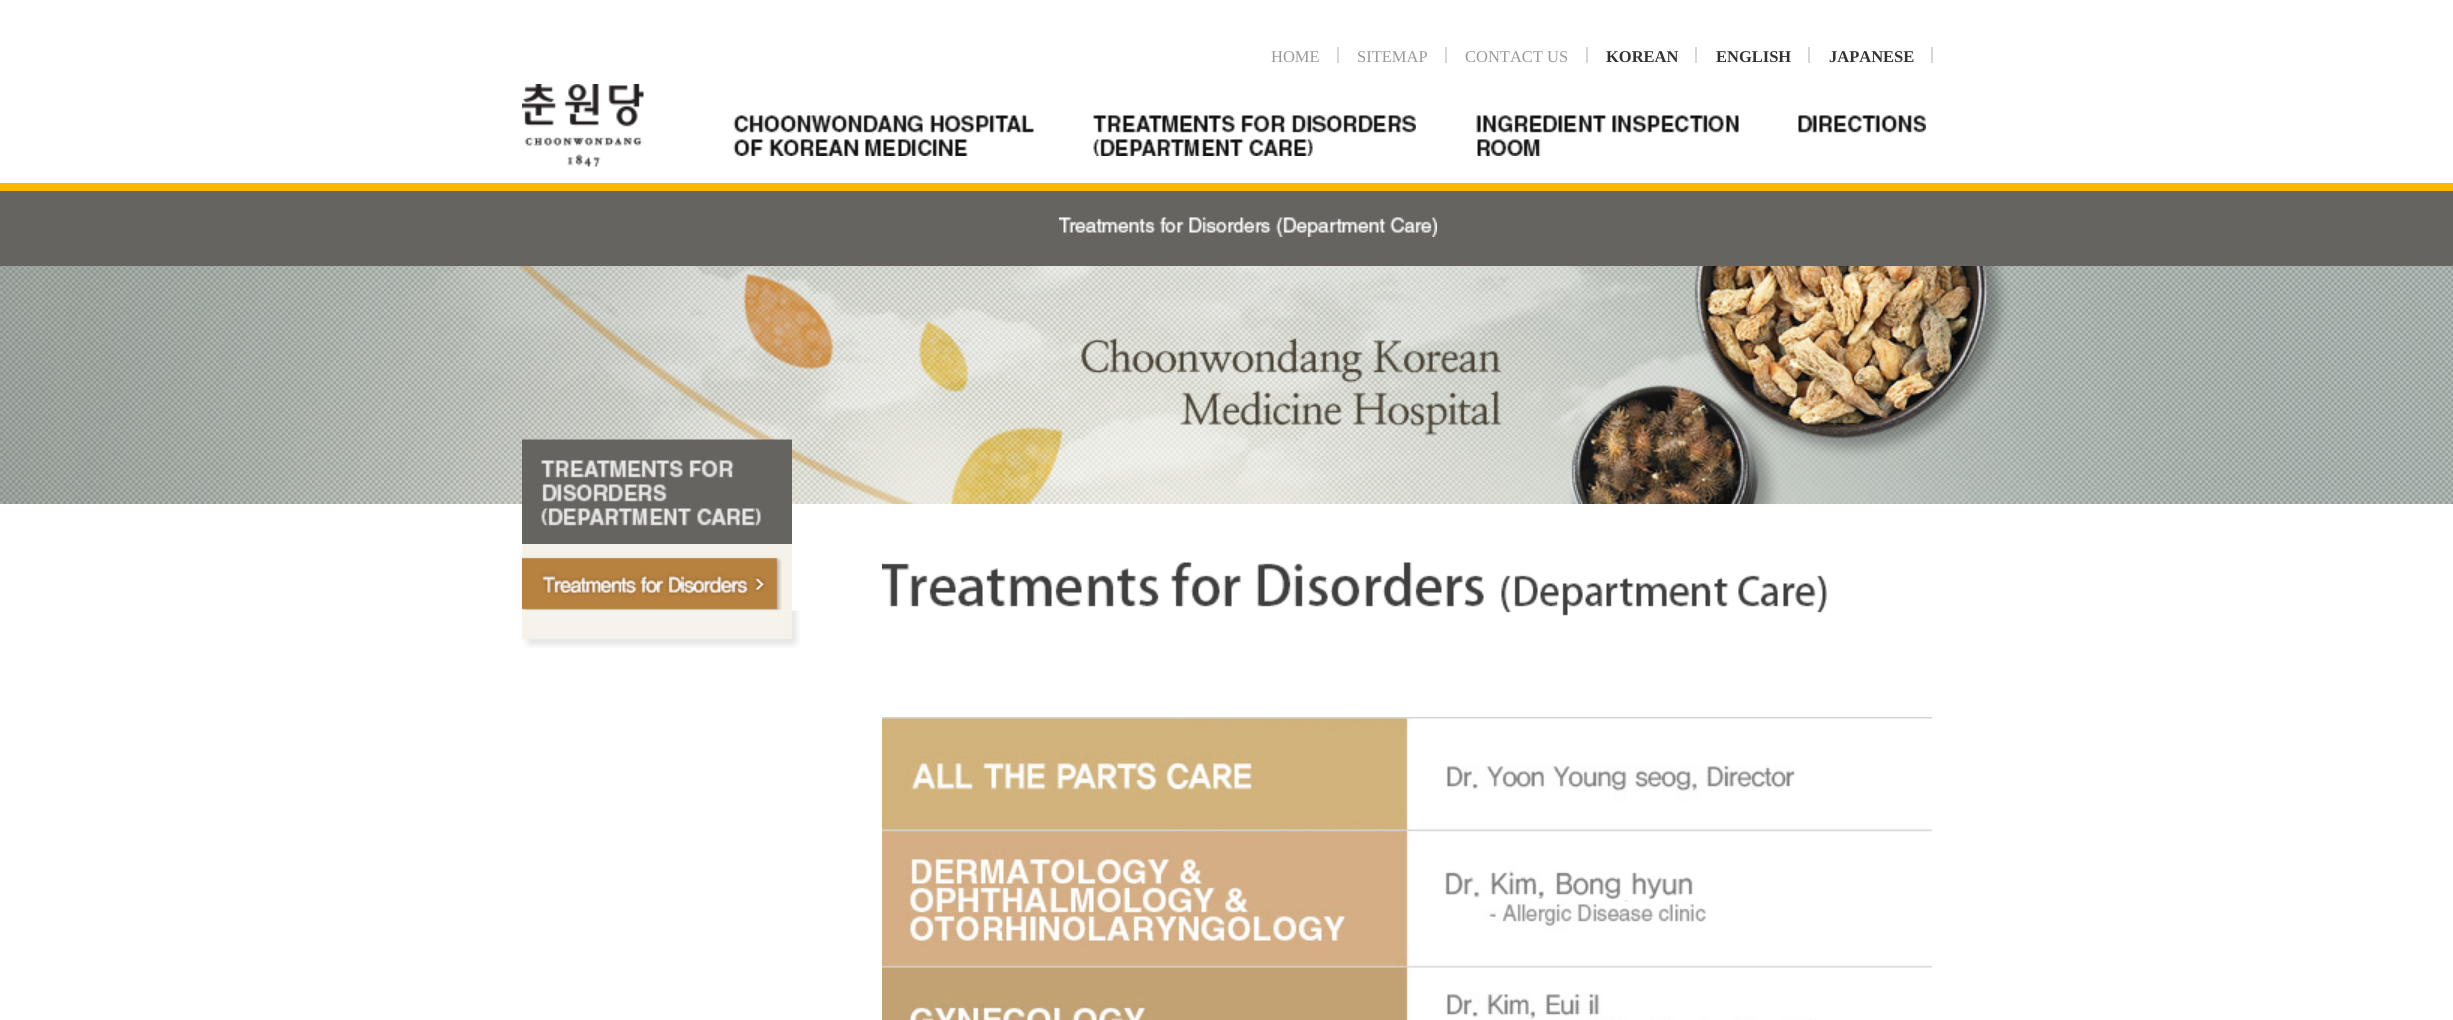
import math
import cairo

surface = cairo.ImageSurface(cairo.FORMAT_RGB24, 2453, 1020)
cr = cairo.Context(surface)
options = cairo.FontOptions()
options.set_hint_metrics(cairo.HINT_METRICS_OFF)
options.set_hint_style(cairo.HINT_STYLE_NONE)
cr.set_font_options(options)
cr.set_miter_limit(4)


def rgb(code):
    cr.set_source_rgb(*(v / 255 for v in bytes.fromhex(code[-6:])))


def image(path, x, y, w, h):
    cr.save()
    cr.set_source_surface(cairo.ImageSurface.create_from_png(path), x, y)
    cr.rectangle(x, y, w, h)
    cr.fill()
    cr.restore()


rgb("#ffffff")
cr.paint()
for x, y, w, h, color in [
    (1337, 47, 2, 16, "#d7d7d7"),
    (1445, 47, 2, 16, "#d7d7d7"),
    (1586, 47, 2, 16, "#d7d7d7"),
    (1695, 47, 2, 16, "#d7d7d7"),
    (1808, 47, 2, 16, "#d7d7d7"),
    (1931, 47, 2, 16, "#d7d7d7"),
]:
    rgb(color)
    cr.rectangle(x, y, w, h)
    cr.fill()
image("img/1.png", 522, 84, 122, 83)
image("img/2.png", 733, 115, 301, 41)
image("img/3.png", 1093, 115, 323, 41)
image("img/4.png", 1476, 115, 263, 41)
image("img/5.png", 1798, 115, 128, 18)
rgb("#666460")
cr.rectangle(0, 191, 2453, 75)
cr.fill()
image("img/6.png", 1059, 217, 378, 20)
rgb("#ffb400")
cr.rectangle(0, 183, 2453, 8)
cr.fill()
image("img/7.png", 0, 266, 2453, 238)
image("img/8.png", 522, 439, 270, 105)
rgb("#f5f3e9")
cr.rectangle(522, 544, 270, 13)
cr.fill()
image("img/9.png", 522, 557, 270, 54)
image("img/10.png", 522, 610, 278, 38)
image("img/11.png", 882, 562, 945, 54)
image("img/12.png", 882, 717, 1050, 303)
cr.select_font_face("Liberation Serif")
cr.set_font_size(16.5)
rgb("#999999")
for x, y, s in [
    (1271, 62, "HOME"),
    (1357, 62, "SITEMAP"),
    (1465, 62, "CONTACT US"),
]:
    cr.move_to(x, y)
    cr.show_text(s)
cr.select_font_face("Liberation Serif", cairo.FONT_SLANT_NORMAL, cairo.FONT_WEIGHT_BOLD)
rgb("#333333")
for x, y, s in [
    (1606, 62, "KOREAN"),
    (1716, 62, "ENGLISH"),
    (1829, 62, "JAPANESE"),
]:
    cr.move_to(x, y)
    cr.show_text(s)
surface.write_to_png("page.png")
